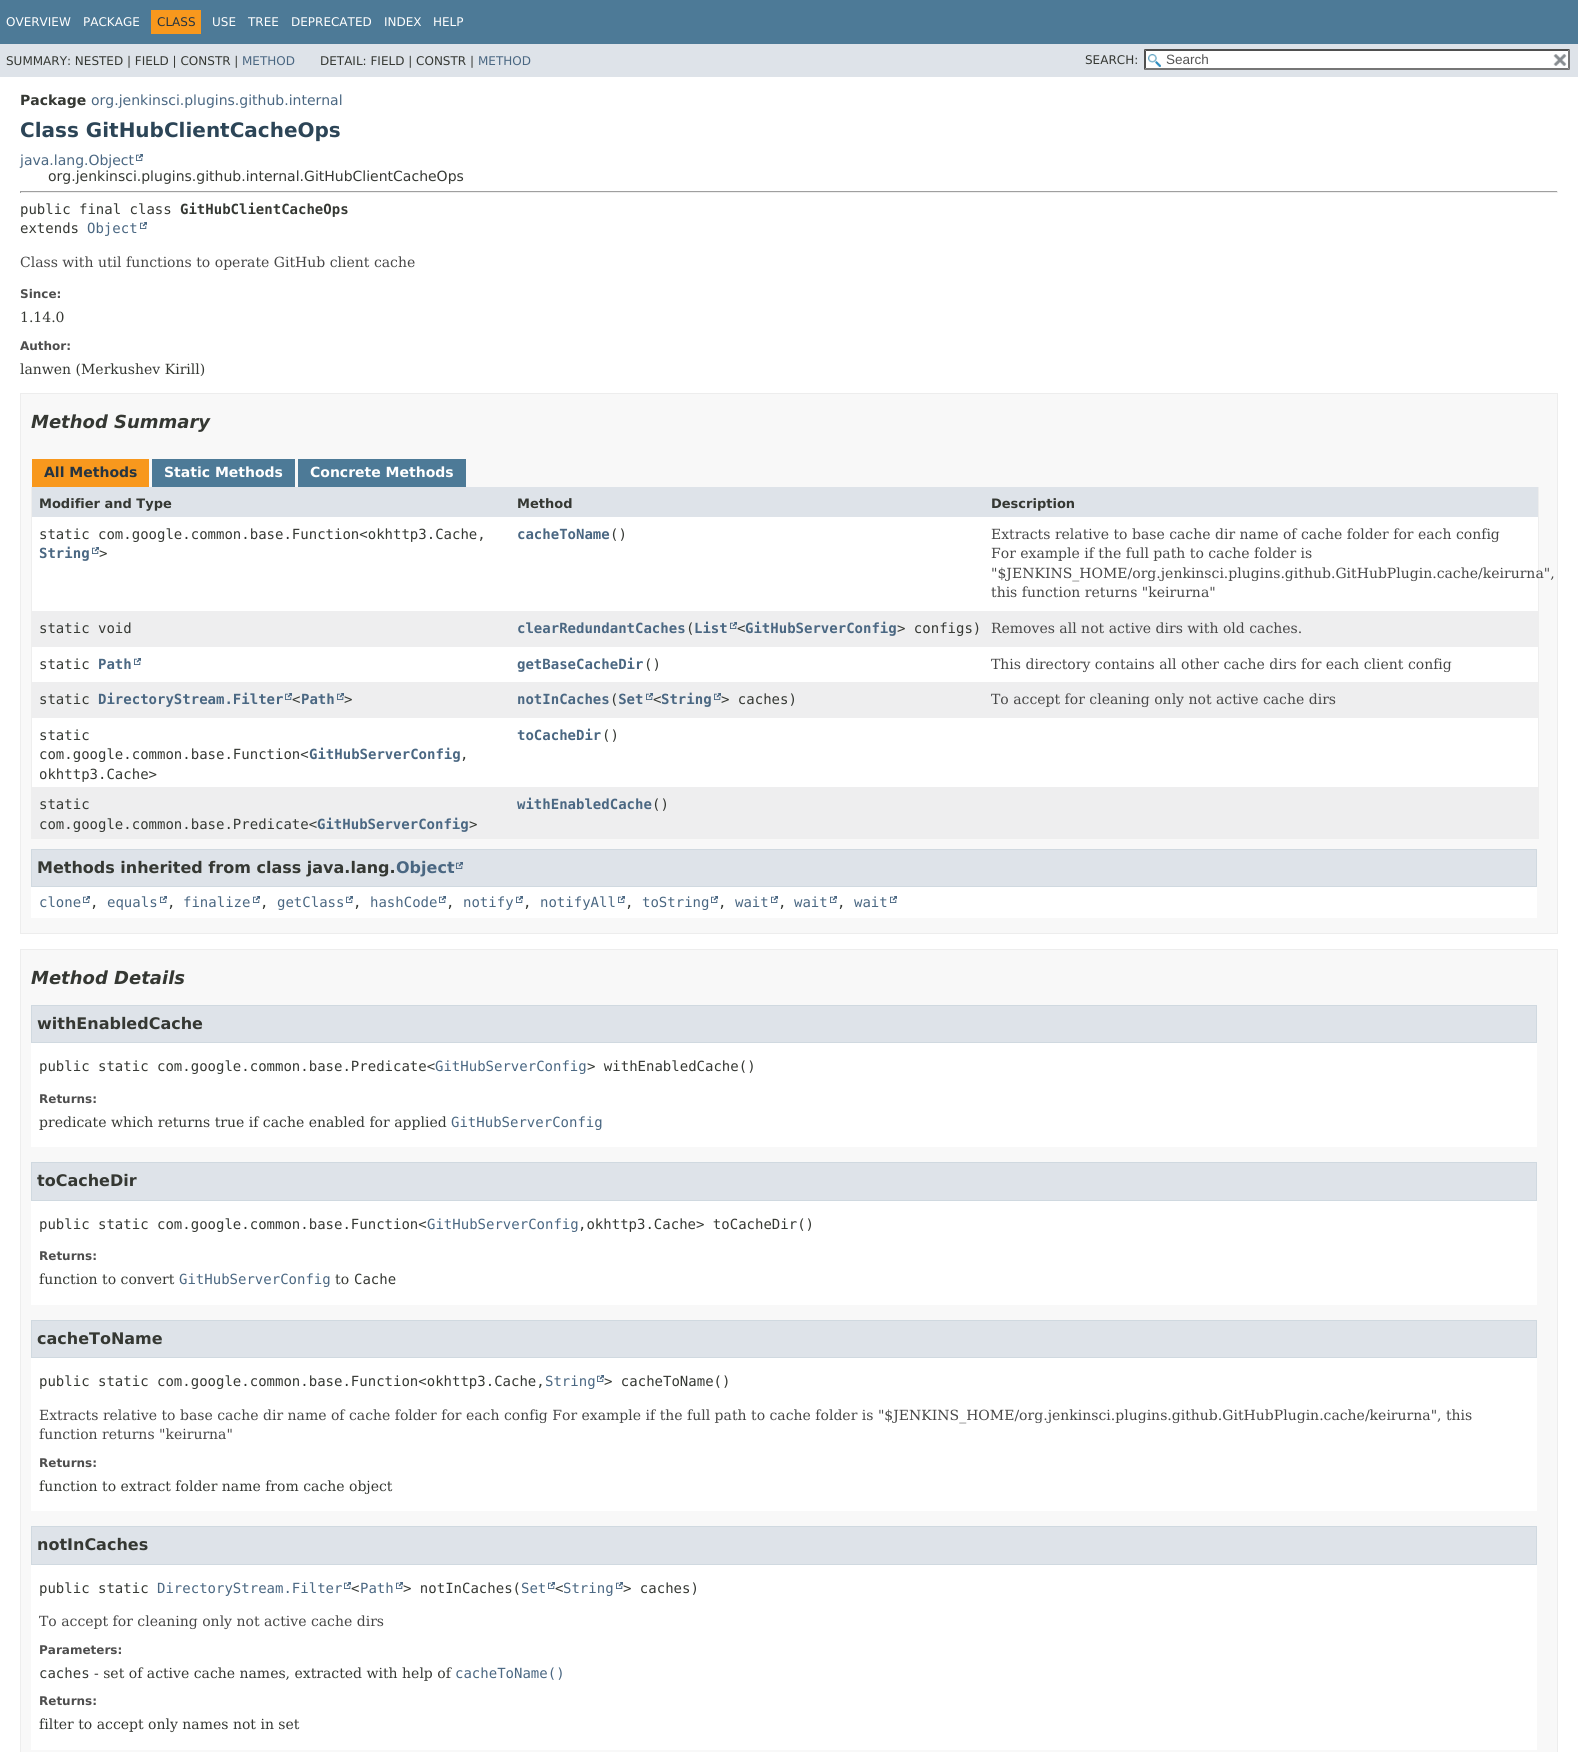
import math
import cairo

surface = cairo.ImageSurface(cairo.FORMAT_RGB24, 1578, 1752)
cr = cairo.Context(surface)
options = cairo.FontOptions()
options.set_hint_metrics(cairo.HINT_METRICS_OFF)
options.set_hint_style(cairo.HINT_STYLE_NONE)
cr.set_font_options(options)
cr.set_miter_limit(4)


def rgb(code):
    cr.set_source_rgb(*(v / 255 for v in bytes.fromhex(code[-6:])))


def image(path, x, y, w, h):
    cr.save()
    cr.set_source_surface(cairo.ImageSurface.create_from_png(path), x, y)
    cr.rectangle(x, y, w, h)
    cr.fill()
    cr.restore()


rgb("#ffffff")
cr.paint()
for x, y, w, h, color in [
    (0, 0, 1578, 44, "#4d7a97"),
    (151, 10, 50, 24, "#f8981d"),
    (0, 44, 1578, 33, "#dee3e9"),
    (1144, 49, 426, 21, "#ffffff"),
]:
    rgb(color)
    cr.rectangle(x, y, w, h)
    cr.fill()
image("img/1.png", 1148, 54, 13, 13)
rgb("#4f4f4f")
cr.new_path()
cr.move_to(1144, 49)
cr.line_to(1570, 49)
cr.line_to(1568, 51)
cr.line_to(1146, 51)
cr.close_path()
cr.fill()
rgb("#767676")
cr.new_path()
cr.move_to(1570, 49)
cr.line_to(1570, 70)
cr.line_to(1568, 68)
cr.line_to(1568, 51)
cr.close_path()
cr.fill()
cr.new_path()
cr.move_to(1570, 70)
cr.line_to(1144, 70)
cr.line_to(1146, 68)
cr.line_to(1568, 68)
cr.close_path()
cr.fill()
rgb("#4f4f4f")
cr.new_path()
cr.move_to(1144, 70)
cr.line_to(1144, 49)
cr.line_to(1146, 51)
cr.line_to(1146, 68)
cr.close_path()
cr.fill()
image("img/2.png", 1553, 54, 14, 12)
image("img/3.png", 136, 154, 7, 7)
for x, y, w, h, color in [
    (20, 191, 1538, 1, "#9f9f9f"),
    (1557, 191, 1, 2, "#eeeeee"),
    (20, 192, 1538, 1, "#eeeeee"),
    (20, 191, 1, 2, "#9f9f9f"),
]:
    rgb(color)
    cr.rectangle(x, y, w, h)
    cr.fill()
image("img/3.png", 140, 222, 7, 7)
rgb("#f8f8f8")
cr.rectangle(20.5, 393.5, 1537, 540)
cr.fill_preserve()
rgb("#ededed")
cr.set_line_width(1)
cr.stroke()
for x, y, w, h, color in [
    (32, 459, 117, 28, "#f8981d"),
    (152, 459, 143, 28, "#4d7a97"),
    (298, 459, 168, 28, "#4d7a97"),
    (1538, 487, 1, 352, "#eeeeee"),
    (31, 838, 1508, 1, "#eeeeee"),
    (31, 487, 1, 352, "#eeeeee"),
    (32, 487, 952, 30, "#dee3e9"),
    (984, 487, 554, 30, "#dee3e9"),
    (32, 517, 952, 94, "#ffffff"),
]:
    rgb(color)
    cr.rectangle(x, y, w, h)
    cr.fill()
image("img/3.png", 92, 547, 7, 7)
cr.rectangle(984, 517, 554, 94)
cr.fill()
rgb("#eeeeef")
cr.rectangle(32, 611, 952, 36)
cr.fill()
image("img/4.png", 730, 622, 7, 7)
cr.rectangle(984, 611, 554, 36)
cr.fill()
rgb("#ffffff")
cr.rectangle(32, 647, 952, 35)
cr.fill()
image("img/3.png", 134, 658, 7, 7)
cr.rectangle(984, 647, 554, 35)
cr.fill()
rgb("#eeeeef")
cr.rectangle(32, 682, 952, 36)
cr.fill()
image("img/4.png", 285, 693, 7, 7)
image("img/4.png", 337, 693, 7, 7)
image("img/4.png", 714, 693, 7, 7)
image("img/4.png", 646, 693, 7, 7)
for x, y, w, h, color in [
    (984, 682, 554, 36, "#eeeeef"),
    (32, 718, 952, 69, "#ffffff"),
    (984, 718, 554, 69, "#ffffff"),
    (32, 787, 952, 51, "#eeeeef"),
    (984, 787, 554, 51, "#eeeeef"),
    (31, 887, 1506, 31, "#ffffff"),
]:
    rgb(color)
    cr.rectangle(x, y, w, h)
    cr.fill()
rgb("#dee3e9")
cr.rectangle(31.5, 849.5, 1505, 37)
cr.fill_preserve()
rgb("#d0d9e0")
cr.stroke()
image("img/5.png", 456, 862, 7, 7)
image("img/3.png", 83, 896, 7, 7)
image("img/3.png", 160, 896, 7, 7)
image("img/3.png", 253, 896, 7, 7)
image("img/3.png", 346, 896, 7, 7)
image("img/3.png", 439, 896, 7, 7)
image("img/3.png", 516, 896, 7, 7)
image("img/3.png", 618, 896, 7, 7)
image("img/3.png", 711, 896, 7, 7)
image("img/3.png", 771, 896, 7, 7)
image("img/3.png", 830, 896, 7, 7)
image("img/3.png", 890, 896, 7, 7)
rgb("#f8f8f8")
cr.rectangle(20.5, 949.5, 1537, 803)
cr.fill_preserve()
rgb("#ededed")
cr.stroke()
rgb("#ffffff")
cr.rectangle(31, 1043, 1506, 104)
cr.fill()
rgb("#dee3e9")
cr.rectangle(31.5, 1005.5, 1505, 37)
cr.fill_preserve()
rgb("#d0d9e0")
cr.stroke()
rgb("#ffffff")
cr.rectangle(31, 1201, 1506, 104)
cr.fill()
rgb("#dee3e9")
cr.rectangle(31.5, 1162.5, 1505, 38)
cr.fill_preserve()
rgb("#d0d9e0")
cr.stroke()
rgb("#ffffff")
cr.rectangle(31, 1358, 1506, 153)
cr.fill()
rgb("#dee3e9")
cr.rectangle(31.5, 1320.5, 1505, 37)
cr.fill_preserve()
rgb("#d0d9e0")
cr.stroke()
image("img/3.png", 597, 1375, 7, 7)
rgb("#ffffff")
cr.rectangle(31, 1565, 1506, 185)
cr.fill()
rgb("#dee3e9")
cr.rectangle(31.5, 1526.5, 1505, 38)
cr.fill_preserve()
rgb("#d0d9e0")
cr.stroke()
image("img/3.png", 344, 1582, 7, 7)
image("img/3.png", 396, 1582, 7, 7)
image("img/3.png", 548, 1582, 7, 7)
image("img/3.png", 616, 1582, 7, 7)
cr.select_font_face("DejaVu Sans")
cr.set_font_size(12)
rgb("#ffffff")
cr.move_to(6, 26)
cr.show_text("OVERVIEW")
cr.move_to(83, 26)
cr.show_text("PACKAGE")
rgb("#253441")
cr.move_to(157, 26)
cr.show_text("CLASS")
rgb("#ffffff")
for x, y, s in [
    (212, 26, "USE"),
    (248, 26, "TREE"),
    (291, 26, "DEPRECATED"),
    (384, 26, "INDEX"),
    (433, 26, "HELP"),
]:
    cr.move_to(x, y)
    cr.show_text(s)
rgb("#353833")
cr.move_to(6, 65)
cr.show_text("SUMMARY: NESTED | FIELD | CONSTR |")
rgb("#4a6782")
cr.move_to(242, 65)
cr.show_text("METHOD")
rgb("#353833")
cr.move_to(320, 65)
cr.show_text("DETAIL: FIELD | CONSTR |")
rgb("#4a6782")
cr.move_to(478, 65)
cr.show_text("METHOD")
rgb("#353833")
cr.move_to(1085, 64)
cr.show_text("SEARCH:")
cr.select_font_face("Liberation Sans")
cr.set_font_size(13.5)
rgb("#545454")
cr.move_to(1166, 64)
cr.show_text("Search")
cr.select_font_face("DejaVu Sans", cairo.FONT_SLANT_NORMAL, cairo.FONT_WEIGHT_BOLD)
cr.set_font_size(14)
rgb("#353833")
cr.move_to(20, 105)
cr.show_text("Package")
cr.select_font_face("DejaVu Sans")
rgb("#4a6782")
cr.move_to(91, 105)
cr.show_text("org.jenkinsci.plugins.github.internal")
cr.select_font_face("DejaVu Sans", cairo.FONT_SLANT_NORMAL, cairo.FONT_WEIGHT_BOLD)
cr.set_font_size(20)
rgb("#2c4557")
cr.move_to(20, 137)
cr.show_text("Class GitHubClientCacheOps")
cr.select_font_face("DejaVu Sans")
cr.set_font_size(14)
rgb("#4a6782")
cr.move_to(20, 165)
cr.show_text("java.lang.Object")
rgb("#353833")
cr.move_to(48, 181)
cr.show_text("org.jenkinsci.plugins.github.internal.GitHubClientCacheOps")
cr.select_font_face("DejaVu Sans Mono")
cr.move_to(20, 214)
cr.show_text("public final class")
cr.select_font_face("DejaVu Sans Mono", cairo.FONT_SLANT_NORMAL, cairo.FONT_WEIGHT_BOLD)
cr.move_to(180, 214)
cr.show_text("GitHubClientCacheOps")
cr.select_font_face("DejaVu Sans Mono")
cr.move_to(20, 233)
cr.show_text("extends")
rgb("#4a6782")
cr.move_to(87, 233)
cr.show_text("Object")
cr.select_font_face("DejaVu Serif")
rgb("#474747")
cr.move_to(20, 267)
cr.show_text("Class with util functions to operate GitHub client cache")
cr.select_font_face("DejaVu Sans", cairo.FONT_SLANT_NORMAL, cairo.FONT_WEIGHT_BOLD)
cr.set_font_size(12)
rgb("#4e4e4e")
cr.move_to(20, 298)
cr.show_text("Since:")
cr.select_font_face("DejaVu Serif")
cr.set_font_size(14)
rgb("#353833")
cr.move_to(20, 322)
cr.show_text("1.14.0")
cr.select_font_face("DejaVu Sans", cairo.FONT_SLANT_NORMAL, cairo.FONT_WEIGHT_BOLD)
cr.set_font_size(12)
rgb("#4e4e4e")
cr.move_to(20, 350)
cr.show_text("Author:")
cr.select_font_face("DejaVu Serif")
cr.set_font_size(14)
rgb("#353833")
cr.move_to(20, 374)
cr.show_text("lanwen (Merkushev Kirill)")
cr.select_font_face("DejaVu Sans", cairo.FONT_SLANT_ITALIC, cairo.FONT_WEIGHT_BOLD)
cr.set_font_size(18)
cr.move_to(31, 428)
cr.show_text("Method Summary")
cr.select_font_face("DejaVu Sans", cairo.FONT_SLANT_NORMAL, cairo.FONT_WEIGHT_BOLD)
cr.set_font_size(14)
rgb("#253441")
cr.move_to(44, 477)
cr.show_text("All Methods")
rgb("#ffffff")
cr.move_to(164, 477)
cr.show_text("Static Methods")
cr.move_to(310, 477)
cr.show_text("Concrete Methods")
cr.set_font_size(13)
rgb("#353833")
for x, y, s in [
    (39, 508, "Modifier and Type"),
    (517, 508, "Method"),
    (991, 508, "Description"),
]:
    cr.move_to(x, y)
    cr.show_text(s)
cr.select_font_face("DejaVu Sans Mono")
cr.set_font_size(14)
cr.move_to(39, 539)
cr.show_text("static com.google.common.base.Function<okhttp3.Cache,")
cr.select_font_face("DejaVu Sans Mono", cairo.FONT_SLANT_NORMAL, cairo.FONT_WEIGHT_BOLD)
rgb("#4a6782")
cr.move_to(39, 558)
cr.show_text("String")
cr.select_font_face("DejaVu Sans Mono")
rgb("#353833")
cr.move_to(99, 558)
cr.show_text(">")
cr.select_font_face("DejaVu Sans Mono", cairo.FONT_SLANT_NORMAL, cairo.FONT_WEIGHT_BOLD)
rgb("#4a6782")
cr.move_to(517, 539)
cr.show_text("cacheToName")
cr.select_font_face("DejaVu Sans Mono")
rgb("#353833")
cr.move_to(610, 539)
cr.show_text("()")
cr.select_font_face("DejaVu Serif")
rgb("#474747")
for x, y, s in [
    (991, 539, "Extracts relative to base cache dir name of cache folder for each config"),
    (991, 558, "For example if the full path to cache folder is"),
    (991, 578, "\"$JENKINS_HOME/org.jenkinsci.plugins.github.GitHubPlugin.cache/keirurna\","),
    (991, 597, "this function returns \"keirurna\""),
]:
    cr.move_to(x, y)
    cr.show_text(s)
cr.select_font_face("DejaVu Sans Mono")
rgb("#353833")
cr.move_to(39, 633)
cr.show_text("static void")
cr.select_font_face("DejaVu Sans Mono", cairo.FONT_SLANT_NORMAL, cairo.FONT_WEIGHT_BOLD)
rgb("#4a6782")
cr.move_to(517, 633)
cr.show_text("clearRedundantCaches List")
cr.move_to(745, 633)
cr.show_text("GitHubServerConfig")
cr.select_font_face("DejaVu Sans Mono")
rgb("#353833")
for x, y, s in [
    (686, 633, "("),
    (737, 633, "<"),
    (897, 633, "> configs)"),
]:
    cr.move_to(x, y)
    cr.show_text(s)
cr.select_font_face("DejaVu Serif")
rgb("#474747")
cr.move_to(991, 633)
cr.show_text("Removes all not active dirs with old caches.")
cr.select_font_face("DejaVu Sans Mono")
rgb("#353833")
cr.move_to(39, 669)
cr.show_text("static")
cr.select_font_face("DejaVu Sans Mono", cairo.FONT_SLANT_NORMAL, cairo.FONT_WEIGHT_BOLD)
rgb("#4a6782")
cr.move_to(98, 669)
cr.show_text("Path")
cr.move_to(517, 669)
cr.show_text("getBaseCacheDir")
cr.select_font_face("DejaVu Sans Mono")
rgb("#353833")
cr.move_to(644, 669)
cr.show_text("()")
cr.select_font_face("DejaVu Serif")
rgb("#474747")
cr.move_to(991, 669)
cr.show_text("This directory contains all other cache dirs for each client config")
cr.select_font_face("DejaVu Sans Mono")
rgb("#353833")
cr.move_to(39, 704)
cr.show_text("static")
cr.select_font_face("DejaVu Sans Mono", cairo.FONT_SLANT_NORMAL, cairo.FONT_WEIGHT_BOLD)
rgb("#4a6782")
cr.move_to(98, 704)
cr.show_text("DirectoryStream.Filter")
cr.select_font_face("DejaVu Sans Mono")
rgb("#353833")
cr.move_to(292, 704)
cr.show_text("<")
cr.select_font_face("DejaVu Sans Mono", cairo.FONT_SLANT_NORMAL, cairo.FONT_WEIGHT_BOLD)
rgb("#4a6782")
cr.move_to(301, 704)
cr.show_text("Path")
cr.select_font_face("DejaVu Sans Mono")
rgb("#353833")
cr.move_to(344, 704)
cr.show_text(">")
cr.select_font_face("DejaVu Sans Mono", cairo.FONT_SLANT_NORMAL, cairo.FONT_WEIGHT_BOLD)
rgb("#4a6782")
cr.move_to(517, 704)
cr.show_text("notInCaches Set")
cr.move_to(661, 704)
cr.show_text("String")
cr.select_font_face("DejaVu Sans Mono")
rgb("#353833")
for x, y, s in [
    (610, 704, "("),
    (653, 704, "<"),
    (721, 704, "> caches)"),
]:
    cr.move_to(x, y)
    cr.show_text(s)
cr.select_font_face("DejaVu Serif")
rgb("#474747")
cr.move_to(991, 704)
cr.show_text("To accept for cleaning only not active cache dirs")
cr.select_font_face("DejaVu Sans Mono")
rgb("#353833")
cr.move_to(39, 740)
cr.show_text("static")
cr.move_to(39, 759)
cr.show_text("com.google.common.base.Function<")
cr.select_font_face("DejaVu Sans Mono", cairo.FONT_SLANT_NORMAL, cairo.FONT_WEIGHT_BOLD)
rgb("#4a6782")
cr.move_to(309, 759)
cr.show_text("GitHubServerConfig")
cr.select_font_face("DejaVu Sans Mono")
rgb("#353833")
cr.move_to(460, 759)
cr.show_text(",")
cr.move_to(39, 779)
cr.show_text("okhttp3.Cache>")
cr.select_font_face("DejaVu Sans Mono", cairo.FONT_SLANT_NORMAL, cairo.FONT_WEIGHT_BOLD)
rgb("#4a6782")
cr.move_to(517, 740)
cr.show_text("toCacheDir")
cr.select_font_face("DejaVu Sans Mono")
rgb("#353833")
for x, y, s in [
    (602, 740, "()"),
    (39, 809, "static"),
    (39, 829, "com.google.common.base.Predicate<"),
]:
    cr.move_to(x, y)
    cr.show_text(s)
cr.select_font_face("DejaVu Sans Mono", cairo.FONT_SLANT_NORMAL, cairo.FONT_WEIGHT_BOLD)
rgb("#4a6782")
cr.move_to(317, 829)
cr.show_text("GitHubServerConfig")
cr.select_font_face("DejaVu Sans Mono")
rgb("#353833")
cr.move_to(469, 829)
cr.show_text(">")
cr.select_font_face("DejaVu Sans Mono", cairo.FONT_SLANT_NORMAL, cairo.FONT_WEIGHT_BOLD)
rgb("#4a6782")
cr.move_to(517, 809)
cr.show_text("withEnabledCache")
cr.select_font_face("DejaVu Sans Mono")
rgb("#353833")
cr.move_to(652, 809)
cr.show_text("()")
cr.select_font_face("DejaVu Sans", cairo.FONT_SLANT_NORMAL, cairo.FONT_WEIGHT_BOLD)
cr.set_font_size(16)
cr.move_to(37, 873)
cr.show_text("Methods inherited from class java.lang.")
rgb("#4a6782")
cr.move_to(396, 873)
cr.show_text("Object")
cr.select_font_face("DejaVu Sans Mono")
cr.set_font_size(14)
cr.move_to(39, 907)
cr.show_text("clone")
rgb("#353833")
cr.move_to(90, 907)
cr.show_text(",")
rgb("#4a6782")
cr.move_to(107, 907)
cr.show_text("equals")
rgb("#353833")
cr.move_to(167, 907)
cr.show_text(",")
rgb("#4a6782")
cr.move_to(183, 907)
cr.show_text("finalize")
rgb("#353833")
cr.move_to(260, 907)
cr.show_text(",")
rgb("#4a6782")
cr.move_to(277, 907)
cr.show_text("getClass")
rgb("#353833")
cr.move_to(353, 907)
cr.show_text(",")
rgb("#4a6782")
cr.move_to(370, 907)
cr.show_text("hashCode")
rgb("#353833")
cr.move_to(446, 907)
cr.show_text(",")
rgb("#4a6782")
cr.move_to(463, 907)
cr.show_text("notify")
rgb("#353833")
cr.move_to(523, 907)
cr.show_text(",")
rgb("#4a6782")
cr.move_to(540, 907)
cr.show_text("notifyAll")
rgb("#353833")
cr.move_to(625, 907)
cr.show_text(",")
rgb("#4a6782")
cr.move_to(642, 907)
cr.show_text("toString")
rgb("#353833")
cr.move_to(718, 907)
cr.show_text(",")
rgb("#4a6782")
cr.move_to(735, 907)
cr.show_text("wait")
rgb("#353833")
cr.move_to(778, 907)
cr.show_text(",")
rgb("#4a6782")
cr.move_to(794, 907)
cr.show_text("wait")
rgb("#353833")
cr.move_to(837, 907)
cr.show_text(",")
rgb("#4a6782")
cr.move_to(854, 907)
cr.show_text("wait")
cr.select_font_face("DejaVu Sans", cairo.FONT_SLANT_ITALIC, cairo.FONT_WEIGHT_BOLD)
cr.set_font_size(18)
rgb("#353833")
cr.move_to(31, 984)
cr.show_text("Method Details")
cr.select_font_face("DejaVu Sans", cairo.FONT_SLANT_NORMAL, cairo.FONT_WEIGHT_BOLD)
cr.set_font_size(16)
cr.move_to(37, 1029)
cr.show_text("withEnabledCache")
cr.select_font_face("DejaVu Sans Mono")
cr.set_font_size(14)
cr.move_to(39, 1071)
cr.show_text("public static com.google.common.base.Predicate<")
rgb("#4a6782")
cr.move_to(435, 1071)
cr.show_text("GitHubServerConfig")
rgb("#353833")
cr.move_to(587, 1071)
cr.show_text("> withEnabledCache()")
cr.select_font_face("DejaVu Sans", cairo.FONT_SLANT_NORMAL, cairo.FONT_WEIGHT_BOLD)
cr.set_font_size(12)
rgb("#4e4e4e")
cr.move_to(39, 1103)
cr.show_text("Returns:")
cr.select_font_face("DejaVu Serif")
cr.set_font_size(14)
rgb("#353833")
cr.move_to(39, 1127)
cr.show_text("predicate which returns true if cache enabled for applied")
cr.select_font_face("DejaVu Sans Mono")
rgb("#4a6782")
cr.move_to(451, 1127)
cr.show_text("GitHubServerConfig")
cr.select_font_face("DejaVu Sans", cairo.FONT_SLANT_NORMAL, cairo.FONT_WEIGHT_BOLD)
cr.set_font_size(16)
rgb("#353833")
cr.move_to(37, 1186)
cr.show_text("toCacheDir")
cr.select_font_face("DejaVu Sans Mono")
cr.set_font_size(14)
cr.move_to(39, 1229)
cr.show_text("public static com.google.common.base.Function<")
rgb("#4a6782")
cr.move_to(427, 1229)
cr.show_text("GitHubServerConfig")
rgb("#353833")
cr.move_to(578, 1229)
cr.show_text(",okhttp3.Cache> toCacheDir()")
cr.select_font_face("DejaVu Sans", cairo.FONT_SLANT_NORMAL, cairo.FONT_WEIGHT_BOLD)
cr.set_font_size(12)
rgb("#4e4e4e")
cr.move_to(39, 1260)
cr.show_text("Returns:")
cr.select_font_face("DejaVu Serif")
cr.set_font_size(14)
rgb("#353833")
cr.move_to(39, 1284)
cr.show_text("function to convert")
cr.select_font_face("DejaVu Sans Mono")
rgb("#4a6782")
cr.move_to(179, 1284)
cr.show_text("GitHubServerConfig")
cr.select_font_face("DejaVu Serif")
rgb("#353833")
cr.move_to(335, 1284)
cr.show_text("to")
cr.select_font_face("DejaVu Sans Mono")
cr.move_to(354, 1284)
cr.show_text("Cache")
cr.select_font_face("DejaVu Sans", cairo.FONT_SLANT_NORMAL, cairo.FONT_WEIGHT_BOLD)
cr.set_font_size(16)
cr.move_to(37, 1344)
cr.show_text("cacheToName")
cr.select_font_face("DejaVu Sans Mono")
cr.set_font_size(14)
cr.move_to(39, 1386)
cr.show_text("public static com.google.common.base.Function<okhttp3.Cache,")
rgb("#4a6782")
cr.move_to(545, 1386)
cr.show_text("String")
rgb("#353833")
cr.move_to(604, 1386)
cr.show_text("> cacheToName()")
cr.select_font_face("DejaVu Serif")
rgb("#474747")
cr.move_to(39, 1420)
cr.show_text("Extracts relative to base cache dir name of cache folder for each config For example if the full path to cache folder is \"$JENKINS_HOME/org.jenkinsci.plugins.github.GitHubPlugin.cache/keirurna\", this")
cr.move_to(39, 1439)
cr.show_text("function returns \"keirurna\"")
cr.select_font_face("DejaVu Sans", cairo.FONT_SLANT_NORMAL, cairo.FONT_WEIGHT_BOLD)
cr.set_font_size(12)
rgb("#4e4e4e")
cr.move_to(39, 1467)
cr.show_text("Returns:")
cr.select_font_face("DejaVu Serif")
cr.set_font_size(14)
rgb("#353833")
cr.move_to(39, 1491)
cr.show_text("function to extract folder name from cache object")
cr.select_font_face("DejaVu Sans", cairo.FONT_SLANT_NORMAL, cairo.FONT_WEIGHT_BOLD)
cr.set_font_size(16)
cr.move_to(37, 1550)
cr.show_text("notInCaches")
cr.select_font_face("DejaVu Sans Mono")
cr.set_font_size(14)
cr.move_to(39, 1593)
cr.show_text("public static")
rgb("#4a6782")
cr.move_to(157, 1593)
cr.show_text("DirectoryStream.Filter")
rgb("#353833")
cr.move_to(351, 1593)
cr.show_text("<")
rgb("#4a6782")
cr.move_to(360, 1593)
cr.show_text("Path")
rgb("#353833")
cr.move_to(403, 1593)
cr.show_text("> notInCaches(")
rgb("#4a6782")
cr.move_to(521, 1593)
cr.show_text("Set")
rgb("#353833")
cr.move_to(555, 1593)
cr.show_text("<")
rgb("#4a6782")
cr.move_to(563, 1593)
cr.show_text("String")
rgb("#353833")
cr.move_to(623, 1593)
cr.show_text("> caches)")
cr.select_font_face("DejaVu Serif")
rgb("#474747")
cr.move_to(39, 1626)
cr.show_text("To accept for cleaning only not active cache dirs")
cr.select_font_face("DejaVu Sans", cairo.FONT_SLANT_NORMAL, cairo.FONT_WEIGHT_BOLD)
cr.set_font_size(12)
rgb("#4e4e4e")
cr.move_to(39, 1654)
cr.show_text("Parameters:")
cr.select_font_face("DejaVu Sans Mono")
cr.set_font_size(14)
rgb("#353833")
cr.move_to(39, 1678)
cr.show_text("caches")
cr.select_font_face("DejaVu Serif")
cr.move_to(94, 1678)
cr.show_text("- set of active cache names, extracted with help of")
cr.select_font_face("DejaVu Sans Mono")
rgb("#4a6782")
cr.move_to(455, 1678)
cr.show_text("cacheToName()")
cr.select_font_face("DejaVu Sans", cairo.FONT_SLANT_NORMAL, cairo.FONT_WEIGHT_BOLD)
cr.set_font_size(12)
rgb("#4e4e4e")
cr.move_to(39, 1705)
cr.show_text("Returns:")
cr.select_font_face("DejaVu Serif")
cr.set_font_size(14)
rgb("#353833")
cr.move_to(39, 1729)
cr.show_text("filter to accept only names not in set")
surface.write_to_png("page.png")
